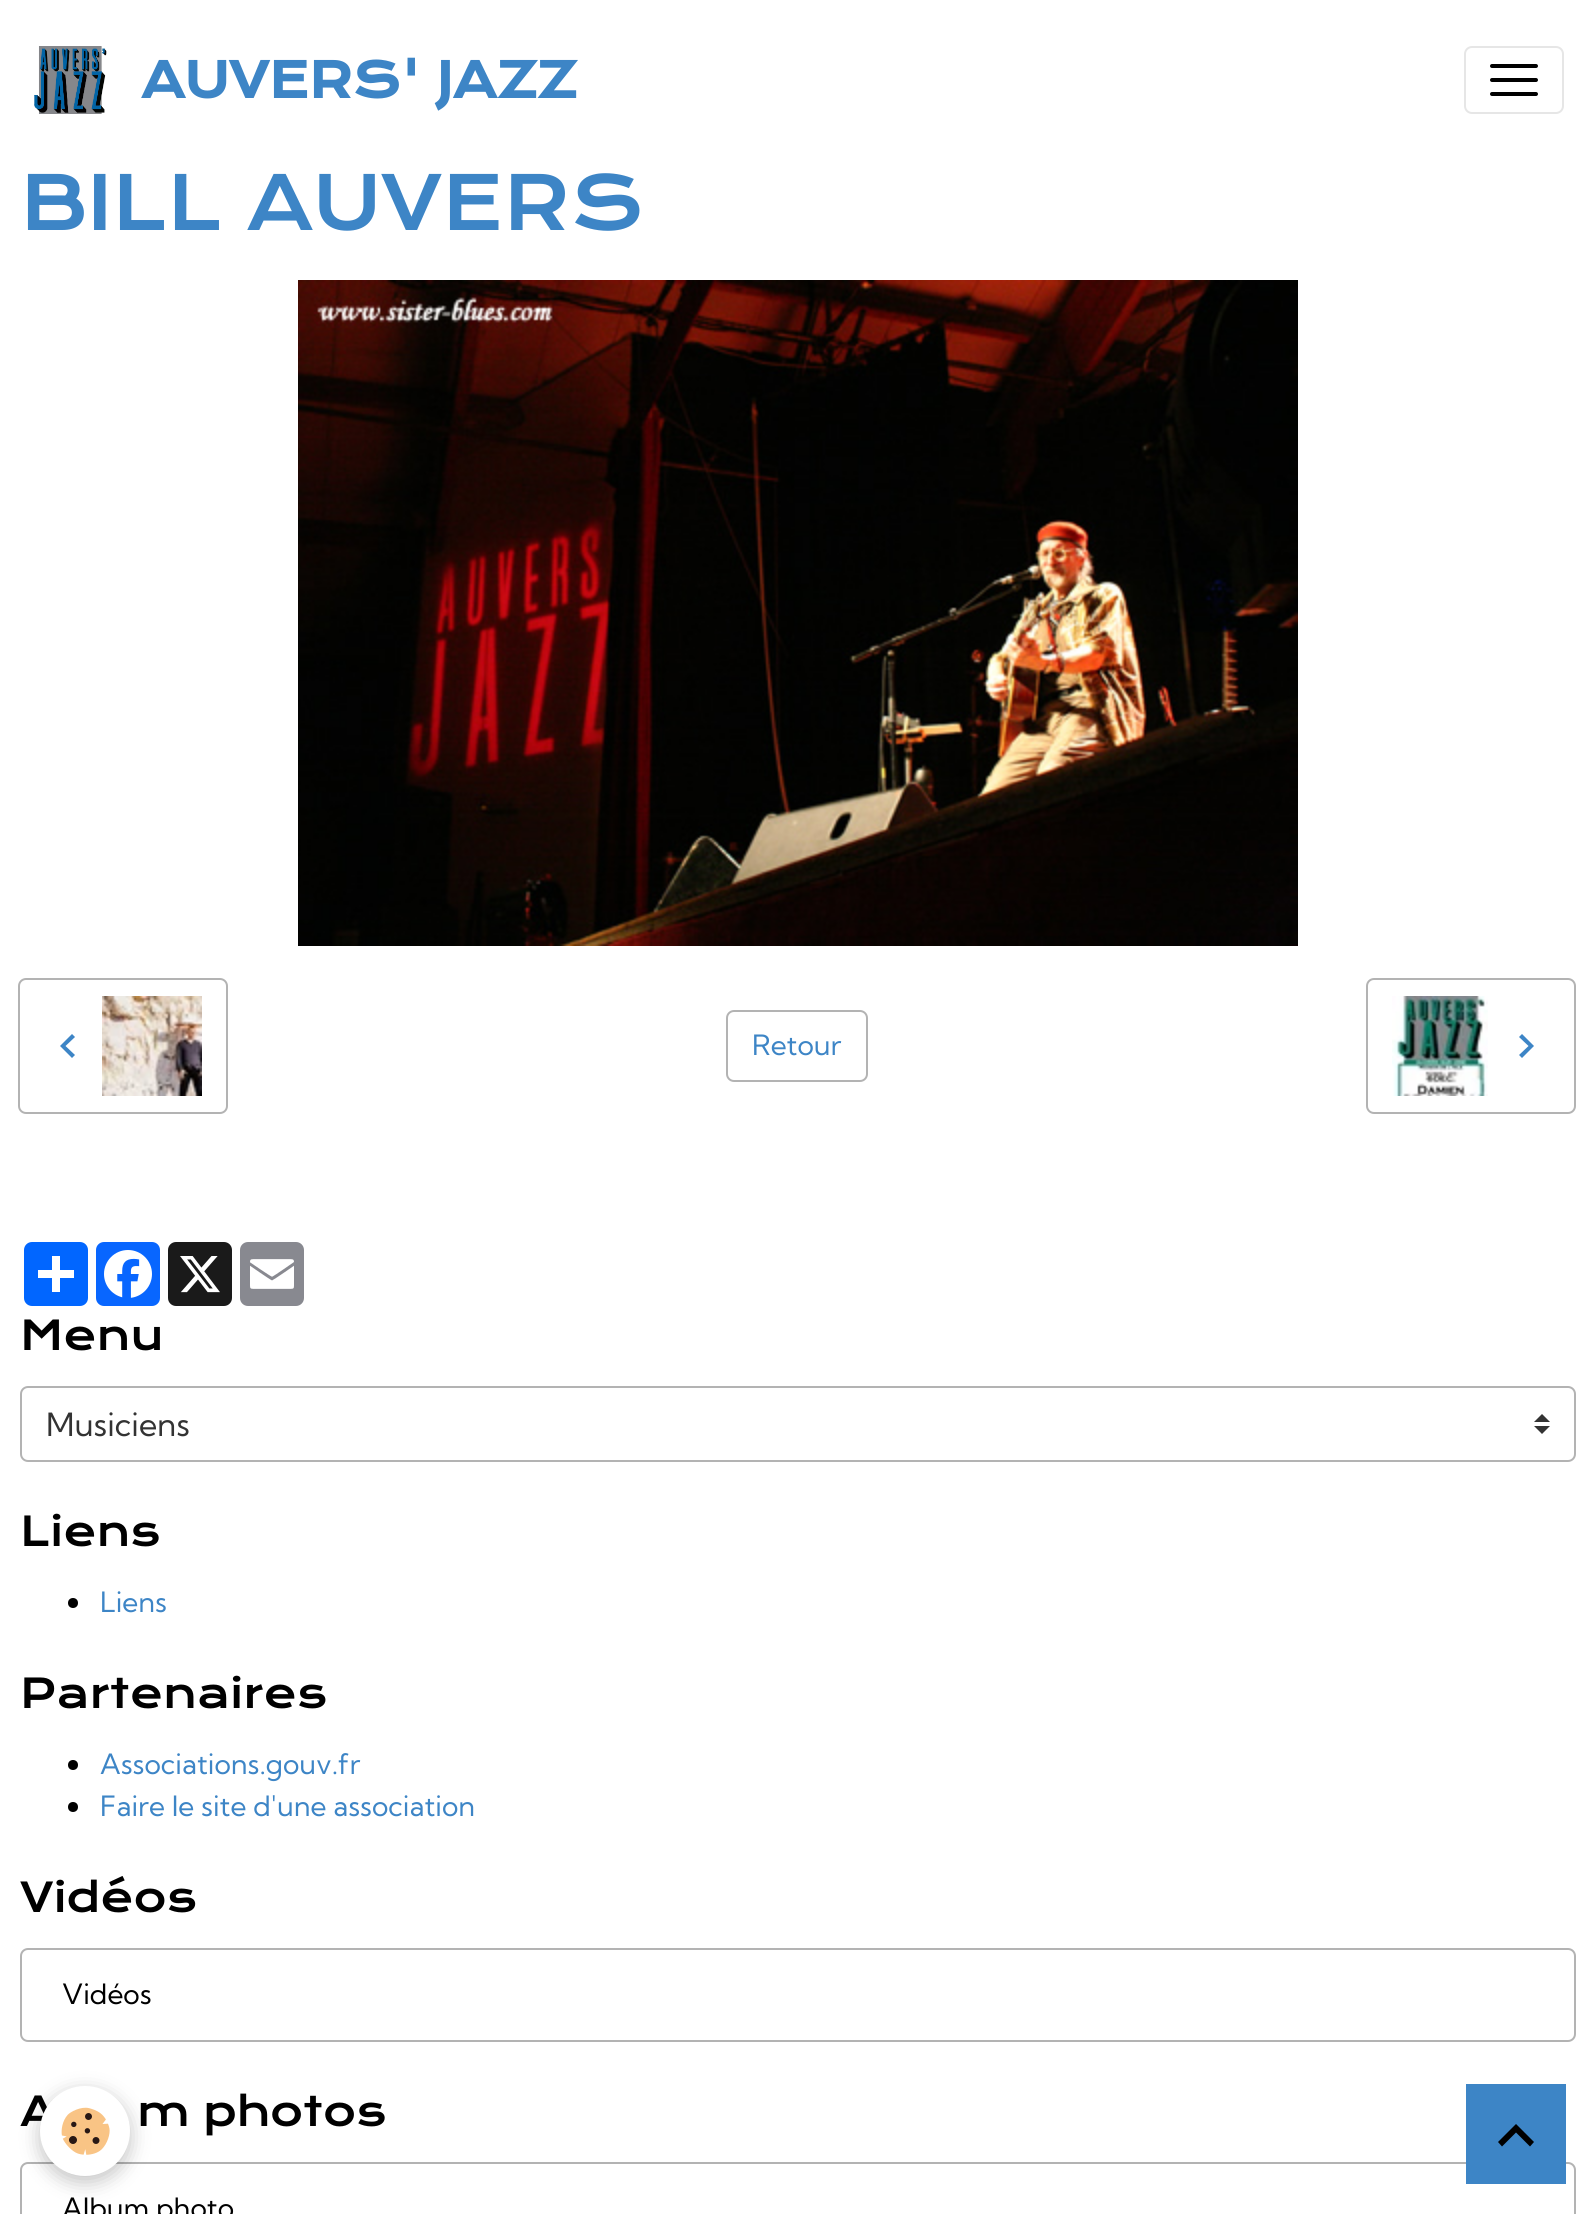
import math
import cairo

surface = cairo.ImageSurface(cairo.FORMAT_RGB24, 1596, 2214)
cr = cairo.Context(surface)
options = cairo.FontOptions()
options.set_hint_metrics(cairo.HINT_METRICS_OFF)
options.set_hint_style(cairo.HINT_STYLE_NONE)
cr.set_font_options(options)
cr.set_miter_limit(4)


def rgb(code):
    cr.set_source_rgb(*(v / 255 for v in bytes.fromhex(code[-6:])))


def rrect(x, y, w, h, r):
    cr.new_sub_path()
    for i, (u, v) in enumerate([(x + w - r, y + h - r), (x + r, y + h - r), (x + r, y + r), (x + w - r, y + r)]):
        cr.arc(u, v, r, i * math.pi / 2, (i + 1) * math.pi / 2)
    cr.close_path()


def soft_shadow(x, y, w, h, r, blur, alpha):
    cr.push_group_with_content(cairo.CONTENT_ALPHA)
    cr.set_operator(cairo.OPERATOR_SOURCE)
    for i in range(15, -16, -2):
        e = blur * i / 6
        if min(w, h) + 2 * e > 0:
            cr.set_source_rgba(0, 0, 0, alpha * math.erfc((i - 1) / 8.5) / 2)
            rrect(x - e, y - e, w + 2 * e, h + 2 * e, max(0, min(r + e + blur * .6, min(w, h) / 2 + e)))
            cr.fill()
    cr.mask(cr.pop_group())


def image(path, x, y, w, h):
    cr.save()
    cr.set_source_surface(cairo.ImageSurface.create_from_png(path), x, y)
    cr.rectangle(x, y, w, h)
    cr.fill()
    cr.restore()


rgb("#ffffff")
cr.paint()
image("img/1.png", 34, 46, 73, 68)
rrect(1465, 47, 98, 66, 7)
rgb("#e6e6e6")
cr.stroke()
rgb("#000000")
rrect(1490, 64, 48, 4, 2)
cr.fill()
rrect(1490, 78, 48, 4, 2)
cr.fill()
rrect(1490, 92, 48, 4, 2)
cr.fill()
image("img/2.png", 298, 280, 1000, 666)
rrect(19, 979, 208, 134, 7)
rgb("#b3b3b3")
cr.stroke()
rgb("#3d85c6")
cr.new_path()
cr.move_to(75, 1037)
cr.line_to(65.5, 1046)
cr.line_to(75, 1055)
cr.line_to(72, 1058)
cr.line_to(60, 1046)
cr.line_to(72, 1034)
cr.close_path()
cr.fill()
image("img/3.png", 102, 996, 100, 100)
rrect(727, 1011, 140, 70, 7)
rgb("#b3b3b3")
cr.stroke()
rrect(1367, 979, 208, 134, 7)
cr.stroke()
image("img/4.png", 1392, 996, 96, 100)
rgb("#3d85c6")
cr.new_path()
cr.move_to(1522, 1034)
cr.line_to(1534, 1046)
cr.line_to(1522, 1058)
cr.line_to(1519, 1055)
cr.line_to(1528.5, 1046)
cr.line_to(1519, 1037)
cr.close_path()
cr.fill()
rgb("#0166ff")
rrect(24, 1242, 64, 64, 8)
cr.fill()
rgb("#ffffff")
cr.rectangle(52, 1256, 8, 36)
cr.fill()
cr.rectangle(38, 1270, 36, 8)
cr.fill()
rgb("#0866ff")
rrect(96, 1242, 64, 64, 8)
cr.fill()
image("img/5.png", 104, 1250, 48, 48)
rgb("#1a1a1a")
rrect(168, 1242, 64, 64, 8)
cr.fill()
image("img/6.png", 180, 1256, 40, 37)
rgb("#888990")
rrect(240, 1242, 64, 64, 8)
cr.fill()
image("img/7.png", 250, 1259, 44, 30)
rgb("#333333")
cr.new_path()
cr.move_to(1542, 1414)
cr.line_to(1534, 1422)
cr.line_to(1550, 1422)
cr.close_path()
cr.move_to(1542, 1434)
cr.line_to(1534, 1426)
cr.line_to(1550, 1426)
cr.close_path()
cr.fill()
rrect(21, 1387, 1554, 74, 7)
rgb("#b3b3b3")
cr.stroke()
rgb("#000000")
cr.arc(73, 1603, 5, 0, 2 * math.pi)
cr.fill()
cr.arc(73, 1765, 5, 0, 2 * math.pi)
cr.fill()
cr.arc(73, 1807, 5, 0, 2 * math.pi)
cr.fill()
rrect(21, 1949, 1554, 92, 7)
rgb("#b3b3b3")
cr.stroke()
rrect(21, 2163, 1554, 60, 7)
cr.stroke()
rgb("#000000")
soft_shadow(40, 2092, 90, 90, 45, 10, 0.24)
rgb("#3d85c6")
cr.rectangle(1466, 2084, 100, 100)
cr.fill()
rgb("#000000")
cr.new_path()
cr.move_to(1516, 2124)
cr.line_to(1534, 2142)
cr.line_to(1530, 2146.5)
cr.line_to(1516, 2132.5)
cr.line_to(1502, 2146.5)
cr.line_to(1498, 2142)
cr.close_path()
cr.fill()
cr.select_font_face("Krona One", cairo.FONT_SLANT_NORMAL, cairo.FONT_WEIGHT_BOLD)
cr.set_font_size(48)
rgb("#3d85c6")
cr.move_to(141, 98)
cr.show_text("AUVERS' JAZZ")
cr.select_font_face("Krona One")
cr.set_font_size(73.5)
cr.move_to(20, 230)
cr.show_text("BILL AUVERS")
cr.select_font_face("Kumbh Sans")
cr.set_font_size(28)
cr.move_to(752, 1055)
cr.show_text("Retour")
cr.select_font_face("Krona One")
cr.set_font_size(40)
rgb("#000000")
cr.move_to(20, 1350)
cr.show_text("Menu")
cr.select_font_face("Kumbh Sans")
cr.set_font_size(32)
rgb("#333333")
cr.move_to(46, 1436)
cr.show_text("Musiciens")
cr.select_font_face("Krona One")
cr.set_font_size(40)
rgb("#000000")
cr.move_to(20, 1546)
cr.show_text("Liens")
cr.select_font_face("Kumbh Sans")
cr.set_font_size(28)
rgb("#3d85c6")
cr.move_to(100, 1612)
cr.show_text("Liens")
cr.select_font_face("Krona One")
cr.set_font_size(40)
rgb("#000000")
cr.move_to(20, 1708)
cr.show_text("Partenaires")
cr.select_font_face("Kumbh Sans")
cr.set_font_size(28)
rgb("#3d85c6")
cr.move_to(100, 1774)
cr.show_text("Associations.gouv.fr")
cr.move_to(100, 1816)
cr.show_text("Faire le site d'une association")
cr.select_font_face("Krona One")
cr.set_font_size(40)
rgb("#000000")
cr.move_to(20, 1912)
cr.show_text("Vidéos")
cr.select_font_face("Kumbh Sans")
cr.set_font_size(28)
cr.move_to(62, 2004)
cr.show_text("Vidéos")
cr.select_font_face("Krona One")
cr.set_font_size(40)
cr.move_to(20, 2126)
cr.show_text("A")
cr.move_to(137, 2126)
cr.show_text("m photos")
cr.select_font_face("Kumbh Sans")
cr.set_font_size(28)
cr.move_to(62, 2218)
cr.show_text("Album photo")
rgb("#ffffff")
cr.new_path()
cr.arc(85, 2131, 45, 0, 2 * math.pi)
cr.fill()
image("img/8.png", 61, 2107, 49, 48)
surface.write_to_png("page.png")
